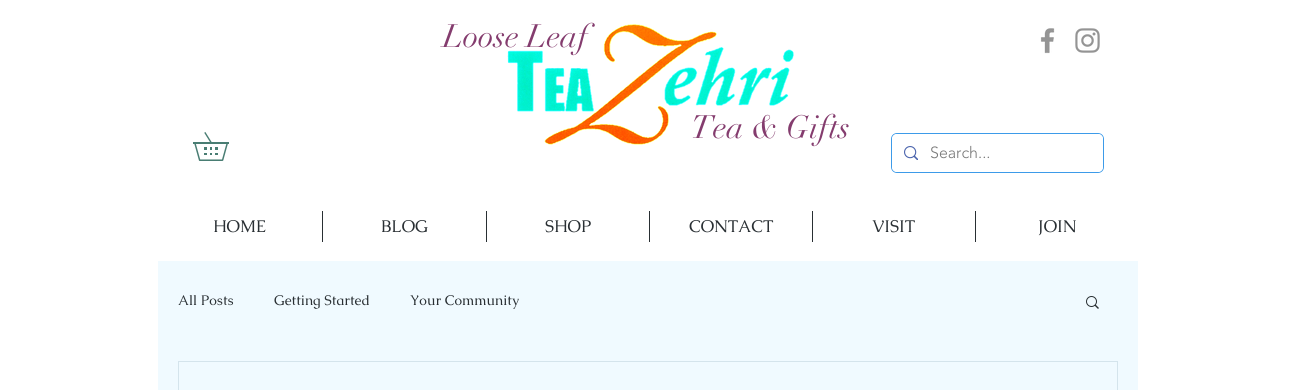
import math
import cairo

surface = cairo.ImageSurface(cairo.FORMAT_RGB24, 1296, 390)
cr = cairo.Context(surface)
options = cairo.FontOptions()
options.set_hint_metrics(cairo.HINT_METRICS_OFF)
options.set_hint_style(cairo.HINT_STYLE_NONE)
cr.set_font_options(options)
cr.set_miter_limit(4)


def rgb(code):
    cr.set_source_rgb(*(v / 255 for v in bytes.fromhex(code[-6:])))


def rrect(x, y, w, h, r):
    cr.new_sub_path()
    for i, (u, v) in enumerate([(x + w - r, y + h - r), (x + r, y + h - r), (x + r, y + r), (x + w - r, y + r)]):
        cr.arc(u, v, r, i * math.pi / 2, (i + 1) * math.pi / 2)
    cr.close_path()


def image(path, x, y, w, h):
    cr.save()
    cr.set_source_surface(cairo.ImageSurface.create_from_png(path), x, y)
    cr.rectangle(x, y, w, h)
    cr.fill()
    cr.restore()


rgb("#ffffff")
cr.paint()
image("img/2.png", 1040, 28, 15, 26)
image("img/3.png", 1075, 28, 25, 25)
image("img/4.png", 193, 132, 36, 29)
rrect(891.5, 133.5, 212, 39, 5.5)
rgb("#3d9be9")
cr.set_line_width(1)
cr.stroke()
rgb("#ffffff")
rrect(892, 134, 211, 38, 5)
cr.fill()
image("img/5.png", 904, 146, 14, 14)
for x, y, w, h, color in [
    (322, 211, 1, 31, "#292f33"),
    (486, 211, 1, 31, "#292f33"),
    (649, 211, 1, 31, "#292f33"),
    (812, 211, 1, 31, "#292f33"),
    (975, 211, 1, 31, "#292f33"),
    (158, 261, 980, 129, "#f0faff"),
]:
    rgb(color)
    cr.rectangle(x, y, w, h)
    cr.fill()
image("img/6.png", 1086, 296, 13, 13)
cr.rectangle(178.5, 361.5, 939, 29)
rgb("#d4e4ec")
cr.stroke()
cr.select_font_face("didot")
cr.set_font_size(32)
rgb("#843c6e")
cr.move_to(443, 47)
cr.show_text("Loose Leaf")
image("img/1.png", 507, 24, 287, 121)
cr.move_to(691, 138)
cr.show_text("Tea & Gifts")
cr.select_font_face("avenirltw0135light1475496 Light")
cr.set_font_size(16)
rgb("#787878")
cr.move_to(930, 158)
cr.show_text("Search...")
cr.select_font_face("Caudex")
cr.set_font_size(17)
rgb("#292f33")
for x, y, s in [
    (213, 232, "HOME"),
    (381, 232, "BLOG"),
    (545, 232, "SHOP"),
    (689, 232, "CONTACT"),
    (872, 232, "VISIT"),
    (1038, 232, "JOIN"),
]:
    cr.move_to(x, y)
    cr.show_text(s)
cr.set_font_size(14)
for x, y, s in [
    (178, 305, "All Posts"),
    (274, 305, "Getting Started"),
    (410, 305, "Your Community"),
]:
    cr.move_to(x, y)
    cr.show_text(s)
surface.write_to_png("page.png")
